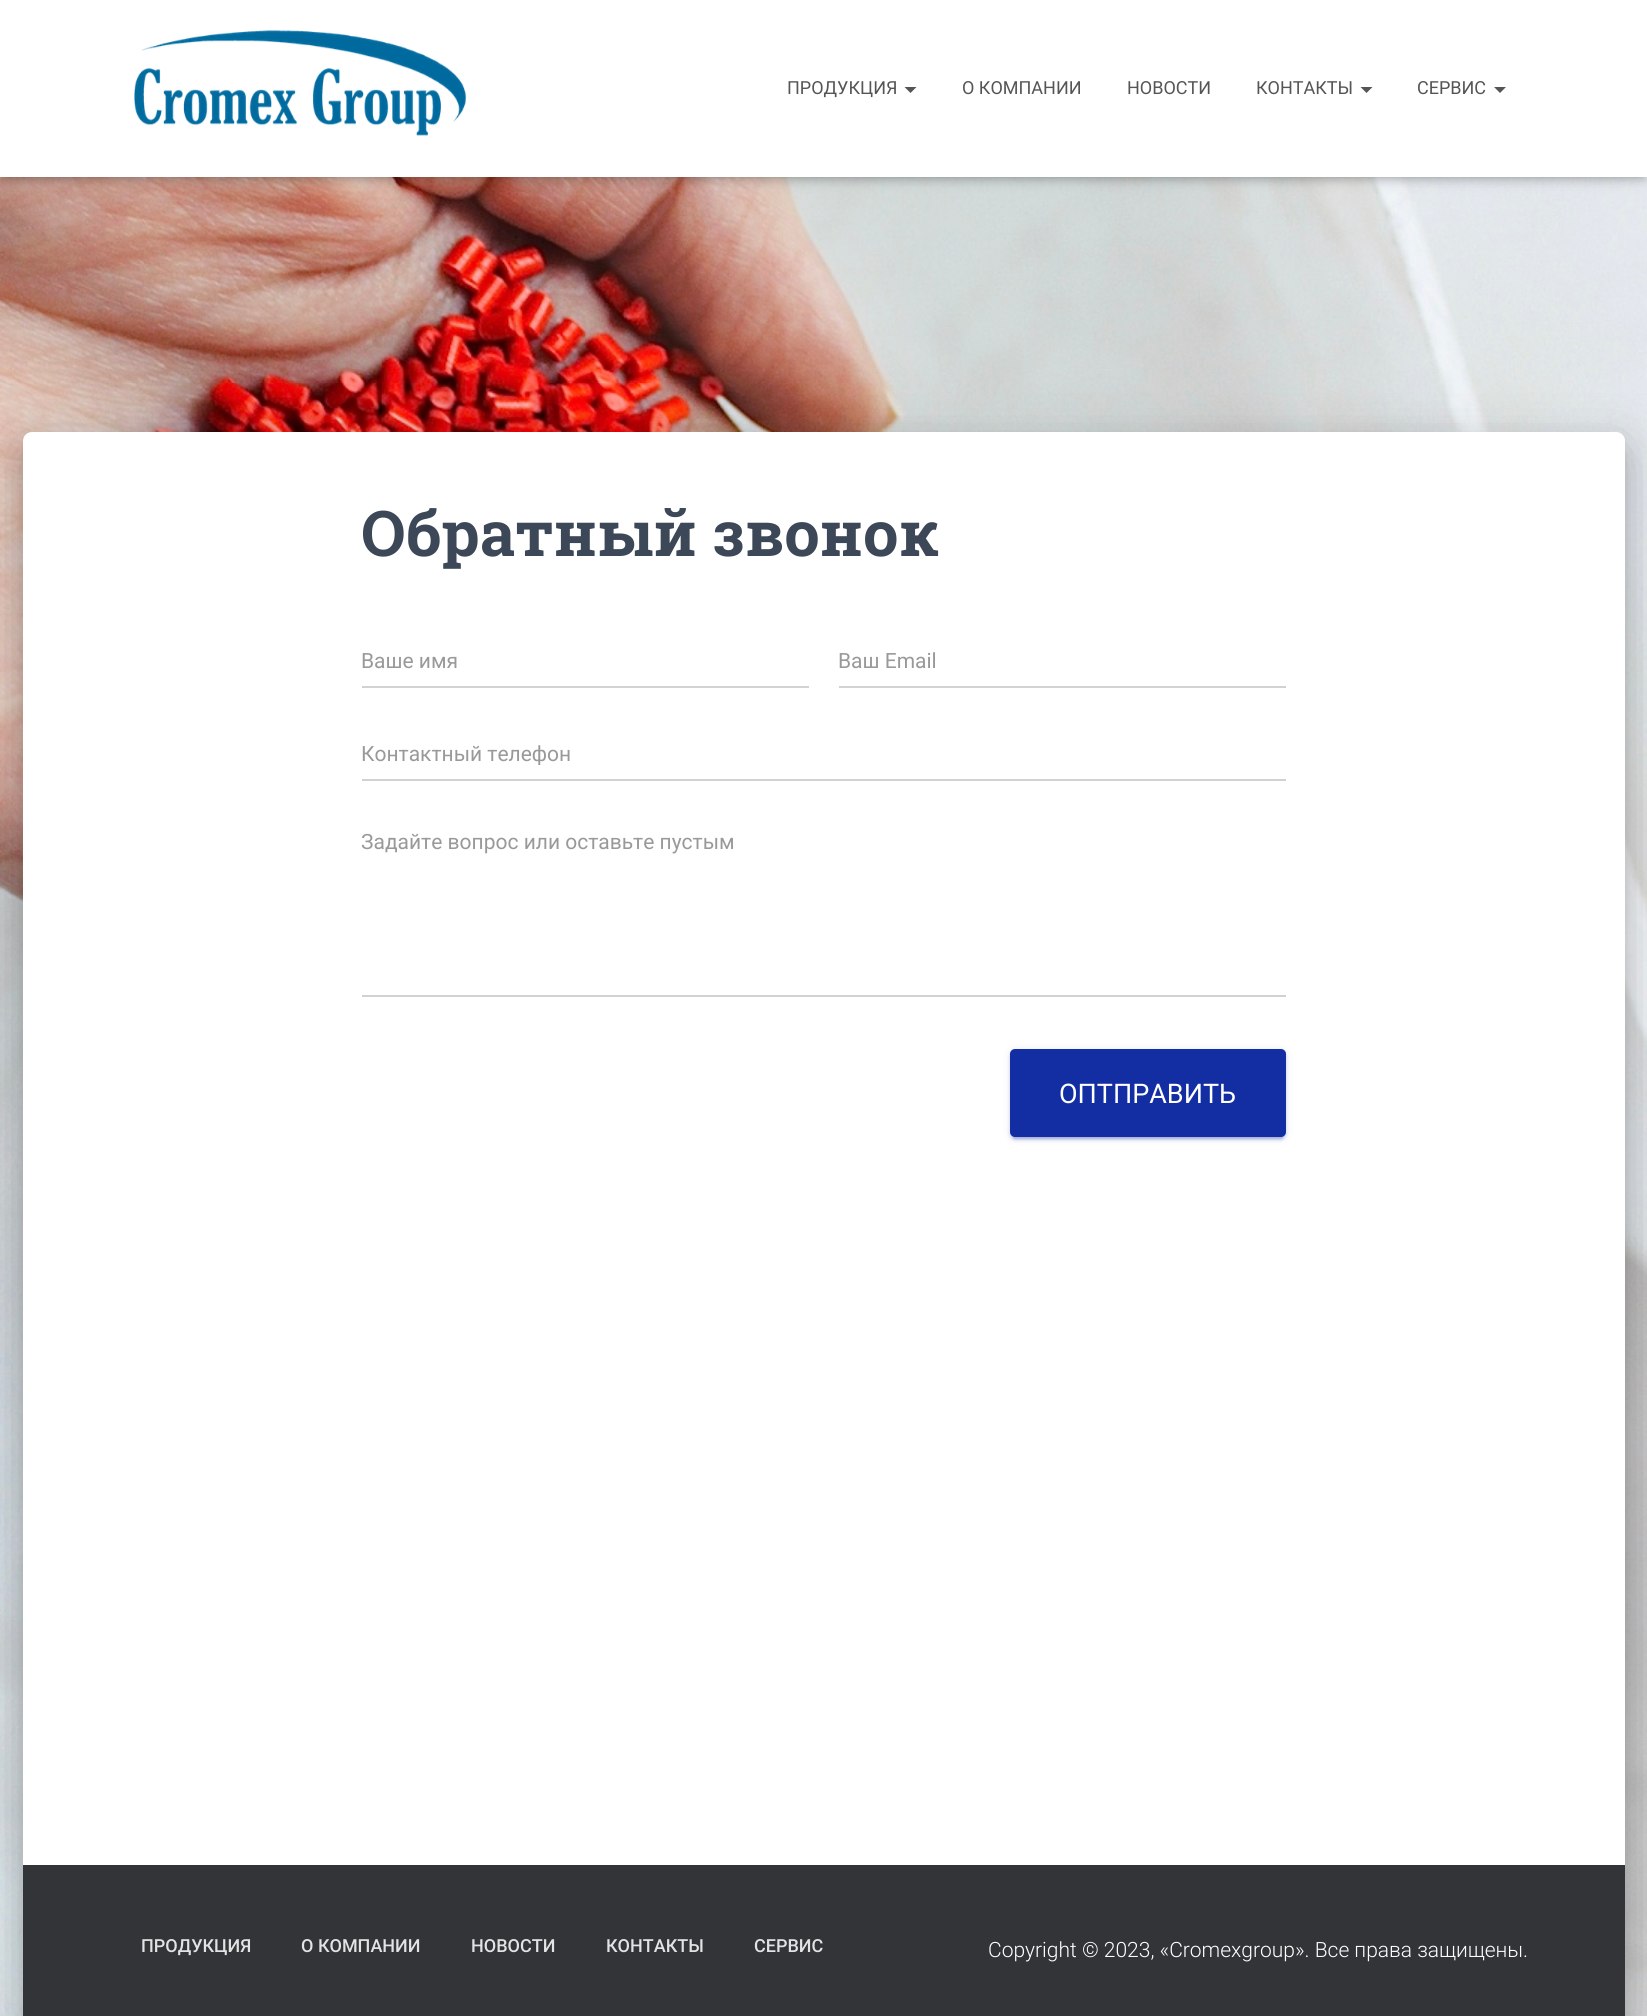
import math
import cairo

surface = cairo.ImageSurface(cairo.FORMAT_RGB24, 1647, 2016)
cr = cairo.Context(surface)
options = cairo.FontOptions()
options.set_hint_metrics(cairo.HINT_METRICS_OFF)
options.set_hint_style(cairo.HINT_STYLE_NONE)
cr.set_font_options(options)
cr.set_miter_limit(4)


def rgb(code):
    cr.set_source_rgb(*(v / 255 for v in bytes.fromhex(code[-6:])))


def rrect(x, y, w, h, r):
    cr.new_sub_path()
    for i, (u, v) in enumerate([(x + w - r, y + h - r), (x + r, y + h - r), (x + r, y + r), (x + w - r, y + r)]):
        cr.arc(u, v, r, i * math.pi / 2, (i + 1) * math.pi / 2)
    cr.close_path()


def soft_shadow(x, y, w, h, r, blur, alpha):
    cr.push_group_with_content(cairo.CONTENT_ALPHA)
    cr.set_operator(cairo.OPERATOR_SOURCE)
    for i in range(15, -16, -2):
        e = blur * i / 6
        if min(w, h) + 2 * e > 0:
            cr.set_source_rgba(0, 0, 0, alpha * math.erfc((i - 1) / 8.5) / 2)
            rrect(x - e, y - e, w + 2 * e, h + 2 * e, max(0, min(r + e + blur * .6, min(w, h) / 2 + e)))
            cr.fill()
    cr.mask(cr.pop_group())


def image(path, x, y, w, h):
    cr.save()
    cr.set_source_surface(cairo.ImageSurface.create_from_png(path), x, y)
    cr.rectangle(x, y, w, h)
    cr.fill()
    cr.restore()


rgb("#ffffff")
cr.paint()
image("img/1.png", 0, 177, 1647, 1839)
rgb("#000000")
soft_shadow(3, 9, 1641, 171, 0, 4, 0.1)
soft_shadow(0, 2, 1647, 177, 0, 7.5, 0.12)
soft_shadow(9, 11, 1629, 159, 0, 7.5, 0.42)
rgb("#ffffff")
cr.rectangle(0, 0, 1647, 177)
cr.fill()
image("img/2.png", 134, 30, 333, 106)
rgb("#555555")
cr.new_path()
cr.move_to(904.5, 87)
cr.line_to(916.5, 87)
cr.line_to(910.5, 93)
cr.close_path()
cr.fill()
cr.new_path()
cr.move_to(1360.5, 87)
cr.line_to(1372.5, 87)
cr.line_to(1366.5, 93)
cr.close_path()
cr.fill()
cr.new_path()
cr.move_to(1494, 87)
cr.line_to(1506, 87)
cr.line_to(1500, 93)
cr.close_path()
cr.fill()
rgb("#000000")
soft_shadow(30, 452, 1587, 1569, 1.5, 7.5, 0.2)
soft_shadow(15, 434, 1617, 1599, 17, 22.5, 0.12)
soft_shadow(20, 453, 1608, 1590, 12, 18, 0.14)
rgb("#ffffff")
cr.new_path()
cr.move_to(32, 432)
cr.line_to(1616, 432)
cr.curve_to(1621, 432, 1625, 436, 1625, 441)
cr.line_to(1625, 2016)
cr.line_to(23, 2016)
cr.line_to(23, 441)
cr.curve_to(23, 436, 27, 432, 32, 432)
cr.close_path()
cr.fill()
for x, y, w, h, color in [
    (362, 686, 447, 2, "#d2d2d2"),
    (839, 686, 447, 2, "#d2d2d2"),
    (362, 779, 924, 2, "#d2d2d2"),
    (362, 995, 924, 2, "#d2d2d2"),
]:
    rgb(color)
    cr.rectangle(x, y, w, h)
    cr.fill()
rgb("#132da3")
soft_shadow(1010, 1050, 276, 89, 5, 4, 0.12)
soft_shadow(1013, 1056, 270, 83, 1.5, 1, 0.2)
soft_shadow(1010, 1052, 276, 88, 5, 1.5, 0.14)
rgb("#132da3")
rrect(1010, 1049, 276, 88, 5)
cr.fill()
rgb("#323437")
cr.rectangle(23, 1865, 1602, 151)
cr.fill()
cr.select_font_face("Roboto")
cr.set_font_size(18)
rgb("#555555")
for x, y, s in [
    (787, 94, "ПРОДУКЦИЯ"),
    (962, 94, "О КОМПАНИИ"),
    (1127, 94, "НОВОСТИ"),
    (1256, 94, "КОНТАКТЫ"),
    (1417, 94, "СЕРВИС"),
]:
    cr.move_to(x, y)
    cr.show_text(s)
cr.select_font_face("Roboto Slab", cairo.FONT_SLANT_NORMAL, cairo.FONT_WEIGHT_BOLD)
cr.set_font_size(63)
rgb("#3c4858")
cr.move_to(361, 556)
cr.show_text("Обратный звонок")
cr.select_font_face("Roboto")
cr.set_font_size(21)
rgb("#999999")
cr.move_to(361, 668)
cr.show_text("Ваше имя")
cr.move_to(838, 668)
cr.show_text("Ваш Email")
cr.save()
cr.rectangle(362, 741, 924, 24)
cr.clip()
cr.move_to(361, 761)
cr.show_text("Контактный телефон")
cr.restore()
cr.move_to(361, 849)
cr.show_text("Задайте вопрос или оставьте пустым")
cr.set_font_size(27)
rgb("#ffffff")
cr.move_to(1059, 1103)
cr.show_text("ОПТПРАВИТЬ")
cr.select_font_face("Roboto Medium")
cr.set_font_size(18)
rgb("#e2e3e3")
for x, y, s in [
    (141, 1952, "ПРОДУКЦИЯ"),
    (301, 1952, "О КОМПАНИИ"),
    (471, 1952, "НОВОСТИ"),
    (606, 1952, "КОНТАКТЫ"),
    (754, 1952, "СЕРВИС"),
]:
    cr.move_to(x, y)
    cr.show_text(s)
cr.select_font_face("Roboto Light")
cr.set_font_size(21)
rgb("#ffffff")
cr.move_to(988, 1957)
cr.show_text("Copyright © 2023, «Cromexgroup». Все права защищены.")
surface.write_to_png("page.png")
